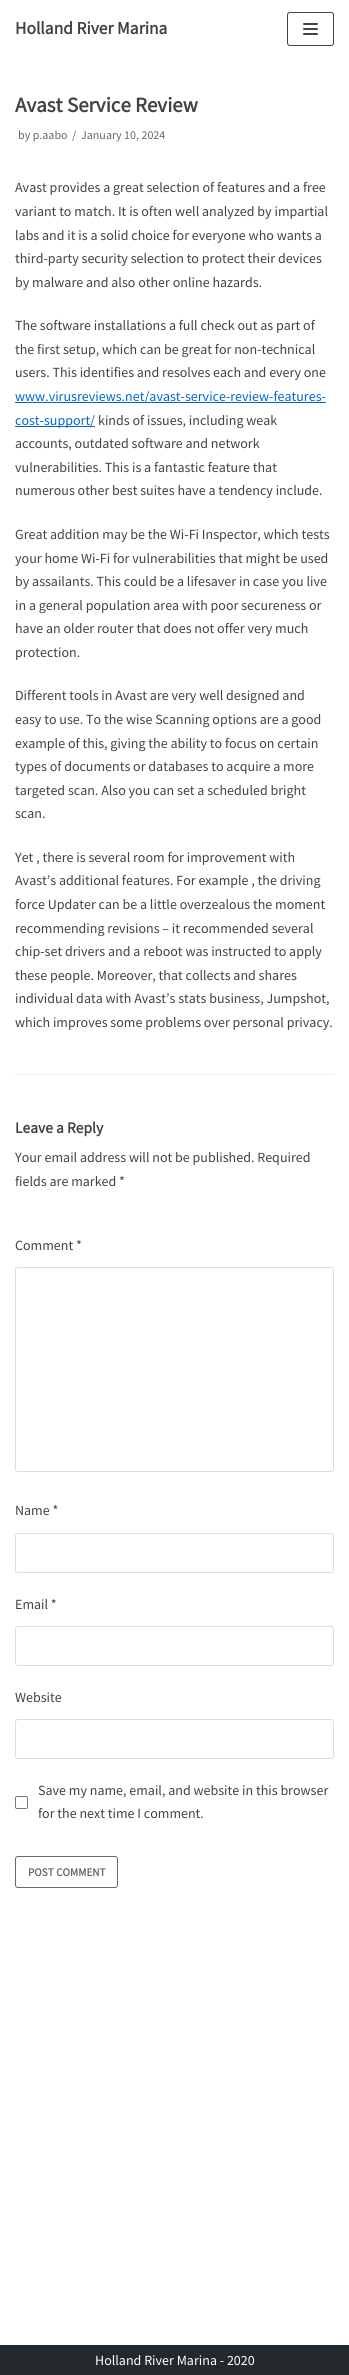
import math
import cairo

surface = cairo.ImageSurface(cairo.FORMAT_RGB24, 349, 2375)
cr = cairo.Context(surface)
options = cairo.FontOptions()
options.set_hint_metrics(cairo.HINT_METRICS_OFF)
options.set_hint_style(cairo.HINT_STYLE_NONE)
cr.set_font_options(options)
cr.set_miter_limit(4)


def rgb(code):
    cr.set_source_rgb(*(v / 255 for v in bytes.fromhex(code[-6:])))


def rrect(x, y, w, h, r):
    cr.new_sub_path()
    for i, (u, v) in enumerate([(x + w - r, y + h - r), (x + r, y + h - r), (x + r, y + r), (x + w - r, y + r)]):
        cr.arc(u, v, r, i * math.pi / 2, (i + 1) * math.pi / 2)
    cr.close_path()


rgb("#ffffff")
cr.paint()
rrect(287.5, 12.5, 46, 33, 2.5)
rgb("#404248")
cr.set_line_width(1)
cr.stroke()
rrect(303, 23, 15, 2, 1)
cr.fill()
rrect(303, 28, 15, 2, 1)
cr.fill()
rrect(303, 33, 15, 2, 1)
cr.fill()
for x, y, w, h, color in [
    (15, 402, 311, 1, "#0366d6"),
    (15, 426, 80, 1, "#0366d6"),
    (15, 1074, 319, 1, "#f0f0f0"),
]:
    rgb(color)
    cr.rectangle(x, y, w, h)
    cr.fill()
rrect(15.5, 1267.5, 318, 204, 2.5)
rgb("#dddddd")
cr.stroke()
rrect(15.5, 1533.5, 318, 39, 2.5)
cr.stroke()
rrect(15.5, 1626.5, 318, 39, 2.5)
cr.stroke()
rrect(15.5, 1719.5, 318, 39, 2.5)
cr.stroke()
rrect(15.5, 1796.5, 12, 12, 1.5)
rgb("#767676")
cr.stroke()
rrect(15.5, 1856.5, 102, 31, 2.5)
rgb("#676767")
cr.stroke()
rgb("#24292e")
cr.rectangle(0, 2345, 349, 30)
cr.fill()
cr.select_font_face("Source Sans Pro", cairo.FONT_SLANT_NORMAL, cairo.FONT_WEIGHT_BOLD)
cr.set_font_size(17.5)
rgb("#404248")
cr.move_to(15, 34)
cr.show_text("Holland River Marina")
cr.set_font_size(21)
cr.move_to(15, 112)
cr.show_text("Avast Service Review")
cr.select_font_face("Source Sans Pro")
cr.set_font_size(12)
rgb("#676767")
for x, y, s in [
    (18, 139, "by p.aabo"),
    (72, 139, "/"),
    (81, 139, "January 10, 2024"),
]:
    cr.move_to(x, y)
    cr.show_text(s)
cr.set_font_size(14)
rgb("#404248")
for x, y, s in [
    (15, 192, "Avast provides a great selection of features and a free"),
    (15, 216, "variant to match. It is often well analyzed by impartial"),
    (15, 240, "labs and it is a solid choice for everyone who wants a"),
    (15, 263, "third-party security selection to protect their devices"),
    (15, 287, "by malware and also other online hazards."),
    (15, 330, "The software installations a full check out as part of"),
    (15, 354, "the first setup, which can be great for non-technical"),
    (15, 377, "users. This identifies and resolves each and every one"),
]:
    cr.move_to(x, y)
    cr.show_text(s)
rgb("#0366d6")
cr.move_to(15, 401)
cr.show_text("www.virusreviews.net/avast-service-review-features-")
cr.move_to(15, 425)
cr.show_text("cost-support/")
rgb("#404248")
for x, y, s in [
    (98, 425, "kinds of issues, including weak"),
    (15, 448, "accounts, outdated software and network"),
    (15, 472, "vulnerabilities. This is a fantastic feature that"),
    (15, 495, "numerous other best suites have a tendency include."),
    (15, 539, "Great addition may be the Wi-Fi Inspector, which tests"),
    (15, 563, "your home Wi-Fi for vulnerabilities that might be used"),
    (15, 586, "by assailants. This could be a lifesaver in case you live"),
    (15, 610, "in a general population area with poor secureness or"),
    (15, 633, "have an older router that does not offer very much"),
    (15, 657, "protection."),
    (15, 700, "Different tools in Avast are very well designed and"),
    (15, 724, "easy to use. To the wise Scanning options are a good"),
    (15, 748, "example of this, giving the ability to focus on certain"),
    (15, 771, "types of documents or databases to acquire a more"),
    (15, 795, "targeted scan. Also you can set a scheduled bright"),
    (15, 818, "scan."),
    (15, 862, "Yet , there is several room for improvement with"),
    (15, 885, "Avast’s additional features. For example , the driving"),
    (15, 909, "force Updater can be a little overzealous the moment"),
    (15, 933, "recommending revisions – it recommended several"),
    (15, 956, "chip-set drivers and a reboot was instructed to apply"),
    (15, 980, "these people. Moreover, that collects and shares"),
    (15, 1003, "individual data with Avast’s stats business, Jumpshot,"),
    (15, 1027, "which improves some problems over personal privacy."),
]:
    cr.move_to(x, y)
    cr.show_text(s)
cr.select_font_face("Source Sans Pro", cairo.FONT_SLANT_NORMAL, cairo.FONT_WEIGHT_BOLD)
cr.set_font_size(15.5)
cr.move_to(15, 1133)
cr.show_text("Leave a Reply")
cr.select_font_face("Source Sans Pro")
cr.set_font_size(14)
for x, y, s in [
    (15, 1162, "Your email address will not be published. Required"),
    (15, 1186, "fields are marked *"),
    (15, 1250, "Comment *"),
    (15, 1515, "Name *"),
    (15, 1609, "Email *"),
    (15, 1702, "Website"),
    (38, 1795, "Save my name, email, and website in this browser"),
    (38, 1818, "for the next time I comment."),
]:
    cr.move_to(x, y)
    cr.show_text(s)
cr.select_font_face("Source Sans Pro", cairo.FONT_SLANT_NORMAL, cairo.FONT_WEIGHT_BOLD)
cr.set_font_size(11.25)
rgb("#676767")
cr.move_to(28, 1876)
cr.show_text("POST COMMENT")
cr.select_font_face("Source Sans Pro")
cr.set_font_size(14)
rgb("#ffffff")
cr.move_to(95, 2365)
cr.show_text("Holland River Marina - 2020")
surface.write_to_png("page.png")
